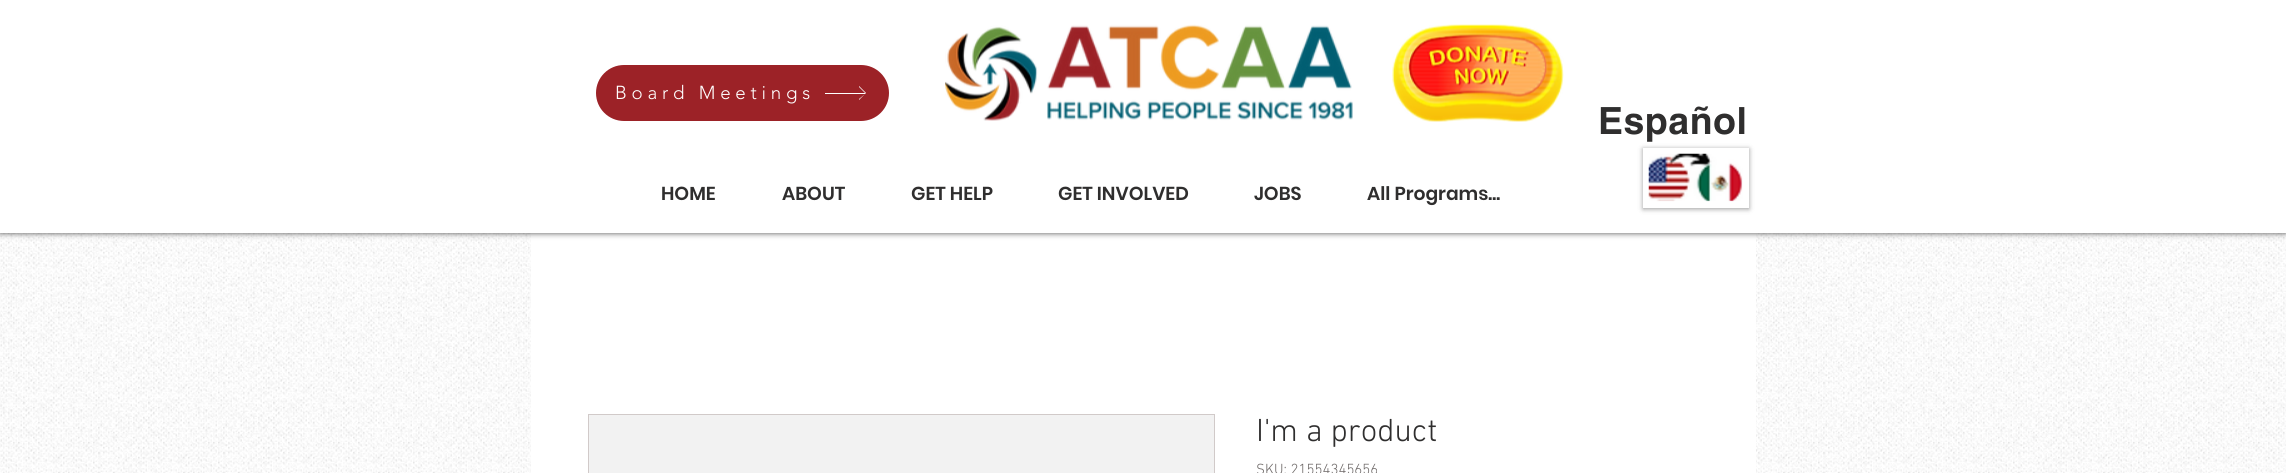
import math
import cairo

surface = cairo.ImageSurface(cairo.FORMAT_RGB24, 2286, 473)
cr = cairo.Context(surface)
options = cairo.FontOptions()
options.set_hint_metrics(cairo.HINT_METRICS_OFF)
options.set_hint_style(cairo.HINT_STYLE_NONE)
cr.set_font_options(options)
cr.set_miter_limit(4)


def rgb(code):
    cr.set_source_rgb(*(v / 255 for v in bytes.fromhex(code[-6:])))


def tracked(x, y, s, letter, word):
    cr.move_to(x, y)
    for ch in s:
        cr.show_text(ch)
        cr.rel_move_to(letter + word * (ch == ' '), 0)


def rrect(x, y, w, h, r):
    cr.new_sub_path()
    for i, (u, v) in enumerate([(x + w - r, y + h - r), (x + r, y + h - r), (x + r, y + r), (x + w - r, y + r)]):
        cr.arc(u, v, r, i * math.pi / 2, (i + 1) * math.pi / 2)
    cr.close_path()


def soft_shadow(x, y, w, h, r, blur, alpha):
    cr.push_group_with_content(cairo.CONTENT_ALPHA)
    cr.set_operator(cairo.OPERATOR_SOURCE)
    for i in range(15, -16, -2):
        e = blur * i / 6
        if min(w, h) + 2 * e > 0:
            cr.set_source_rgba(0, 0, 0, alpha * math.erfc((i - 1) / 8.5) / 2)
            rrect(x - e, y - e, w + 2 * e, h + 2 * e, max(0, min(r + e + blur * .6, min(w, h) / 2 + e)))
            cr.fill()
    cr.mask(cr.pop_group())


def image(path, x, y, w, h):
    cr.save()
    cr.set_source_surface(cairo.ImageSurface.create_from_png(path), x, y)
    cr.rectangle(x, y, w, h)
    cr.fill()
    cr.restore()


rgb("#ffffff")
cr.paint()
image("img/1.png", 0, 0, 2286, 473)
rgb("#ffffff")
cr.rectangle(531, 233, 1225, 240)
cr.fill()
cr.save()
cr.set_fill_rule(cairo.FILL_RULE_EVEN_ODD)
cr.new_path()
cr.move_to(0, 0)
cr.line_to(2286, 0)
cr.line_to(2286, 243)
cr.line_to(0, 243)
cr.close_path()
cr.move_to(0, 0)
cr.line_to(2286, 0)
cr.line_to(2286, 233)
cr.line_to(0, 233)
cr.close_path()
cr.clip()
rgb("#000000")
soft_shadow(0, 0, 2286, 233, 0, 3, 0.7)
cr.restore()
cr.set_source_rgba(1, 1, 1, 0.99)
cr.rectangle(0, 0, 2286, 233)
cr.fill()
rgb("#9c2227")
rrect(596, 65, 293, 56, 28)
cr.fill()
rgb("#ffffff")
cr.new_path()
cr.move_to(859, 86)
cr.line_to(859, 87)
cr.line_to(865, 93)
cr.line_to(825, 93)
cr.line_to(825, 94)
cr.line_to(865, 94)
cr.line_to(859, 99)
cr.line_to(859, 100)
cr.line_to(866, 93)
cr.close_path()
cr.fill()
image("img/2.png", 945, 24, 408, 97)
image("img/3.png", 1392, 24, 172, 98)
rgb("#000000")
soft_shadow(1643, 149, 106, 60, 0, 2.5, 0.4)
rgb("#ffffff")
cr.rectangle(1643, 148, 106, 60)
cr.fill()
image("img/4.png", 1648, 153, 95, 49)
cr.rectangle(588.5, 414.5, 626, 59)
rgb("#d1cac9")
cr.set_line_width(1)
cr.stroke()
rgb("#f2f2f2")
cr.rectangle(589, 415, 625, 58)
cr.fill()
cr.select_font_face("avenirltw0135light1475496 Light")
cr.set_font_size(18.75)
rgb("#ffffff")
tracked(615, 99, "Board Meetings", 4.75, 0)
cr.select_font_face("helvetica", cairo.FONT_SLANT_NORMAL, cairo.FONT_WEIGHT_BOLD)
cr.set_font_size(37.5)
rgb("#2f2e2e")
tracked(1598, 134, "Español", 0.5, 0)
cr.select_font_face("Poppins SemiBold")
cr.set_font_size(18.75)
for x, y, s in [
    (661, 200, "HOME"),
    (782, 200, "ABOUT"),
    (911, 200, "GET HELP"),
    (1058, 200, "GET INVOLVED"),
    (1254, 200, "JOBS"),
    (1367, 200, "All Programs..."),
]:
    cr.move_to(x, y)
    cr.show_text(s)
cr.select_font_face("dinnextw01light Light")
cr.set_font_size(32.5)
cr.move_to(1256, 441)
cr.show_text("I'm a product")
cr.set_font_size(15)
rgb("#6e6968")
cr.move_to(1256, 474)
cr.show_text("SKU: 21554345656")
surface.write_to_png("page.png")
